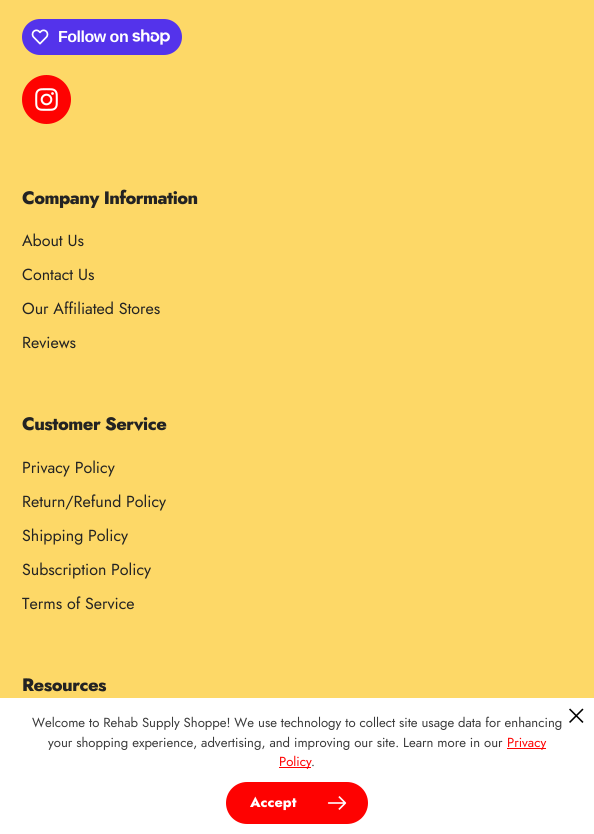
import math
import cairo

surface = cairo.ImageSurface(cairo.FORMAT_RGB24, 594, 834)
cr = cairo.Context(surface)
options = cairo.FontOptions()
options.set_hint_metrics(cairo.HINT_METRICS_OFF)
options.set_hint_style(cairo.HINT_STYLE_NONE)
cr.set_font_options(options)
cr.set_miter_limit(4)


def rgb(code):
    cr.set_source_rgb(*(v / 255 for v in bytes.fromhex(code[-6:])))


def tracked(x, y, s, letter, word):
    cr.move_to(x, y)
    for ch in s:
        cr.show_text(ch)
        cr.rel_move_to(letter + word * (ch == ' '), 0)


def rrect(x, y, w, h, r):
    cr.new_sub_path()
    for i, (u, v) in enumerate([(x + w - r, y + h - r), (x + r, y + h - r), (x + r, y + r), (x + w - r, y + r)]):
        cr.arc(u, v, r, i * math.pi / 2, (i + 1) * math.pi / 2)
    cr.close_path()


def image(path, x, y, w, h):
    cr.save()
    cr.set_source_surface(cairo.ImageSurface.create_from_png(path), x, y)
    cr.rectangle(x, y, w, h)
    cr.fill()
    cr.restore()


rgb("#fdd867")
cr.paint()
rgb("#5433eb")
rrect(22, 19, 160, 36, 18)
cr.fill()
image("img/1.png", 31, 29, 18, 16)
image("img/2.png", 132, 29, 38, 16)
rgb("#fe0201")
cr.arc(46.5, 99.5, 24.5, 0, 2 * math.pi)
cr.fill()
image("img/3.png", 35, 88, 23, 23)
for x, y, w, h, color in [
    (0, 698, 594, 136, "#ffffff"),
    (507, 748, 39, 1, "#fe0201"),
    (279, 767, 32, 1, "#fe0201"),
]:
    rgb(color)
    cr.rectangle(x, y, w, h)
    cr.fill()
image("img/4.png", 569, 708, 15, 15)
rrect(226, 782, 142, 42, 21)
cr.fill()
image("img/5.png", 327, 796, 20, 14)
cr.select_font_face("Liberation Sans", cairo.FONT_SLANT_NORMAL, cairo.FONT_WEIGHT_BOLD)
cr.set_font_size(16)
rgb("#ffffff")
tracked(58, 42, "Follow on", -0.5, 0)
cr.select_font_face("Jost ExtraBold")
cr.set_font_size(18)
rgb("#232323")
tracked(22, 204, "Company Information", -0.5, 0)
cr.select_font_face("Jost")
cr.set_font_size(16)
for x, y, s in [
    (22, 246, "About Us"),
    (22, 280, "Contact Us"),
    (22, 314, "Our Affiliated Stores"),
    (22, 348, "Reviews"),
]:
    cr.move_to(x, y)
    cr.show_text(s)
cr.select_font_face("Jost ExtraBold")
cr.set_font_size(18)
tracked(22, 430, "Customer Service", -0.5, 0)
cr.select_font_face("Jost")
cr.set_font_size(16)
for x, y, s in [
    (22, 473, "Privacy Policy"),
    (22, 507, "Return/Refund Policy"),
    (22, 541, "Shipping Policy"),
    (22, 575, "Subscription Policy"),
    (22, 609, "Terms of Service"),
]:
    cr.move_to(x, y)
    cr.show_text(s)
cr.select_font_face("Jost ExtraBold")
cr.set_font_size(18)
tracked(22, 691, "Resources", -0.5, 0)
cr.select_font_face("Jost")
cr.set_font_size(13.1)
rgb("#3a3a3a")
cr.move_to(32, 727)
cr.show_text("Welcome to Rehab Supply Shoppe! We use technology to collect site usage data for enhancing")
cr.move_to(48, 747)
cr.show_text("your shopping experience, advertising, and improving our site. Learn more in our")
rgb("#fe0201")
cr.move_to(507, 747)
cr.show_text("Privacy")
cr.move_to(279, 766)
cr.show_text("Policy")
rgb("#3a3a3a")
cr.move_to(311, 766)
cr.show_text(".")
cr.select_font_face("Jost ExtraBold")
cr.set_font_size(14)
rgb("#ffffff")
cr.move_to(250, 807)
cr.show_text("Accept")
surface.write_to_png("page.png")
